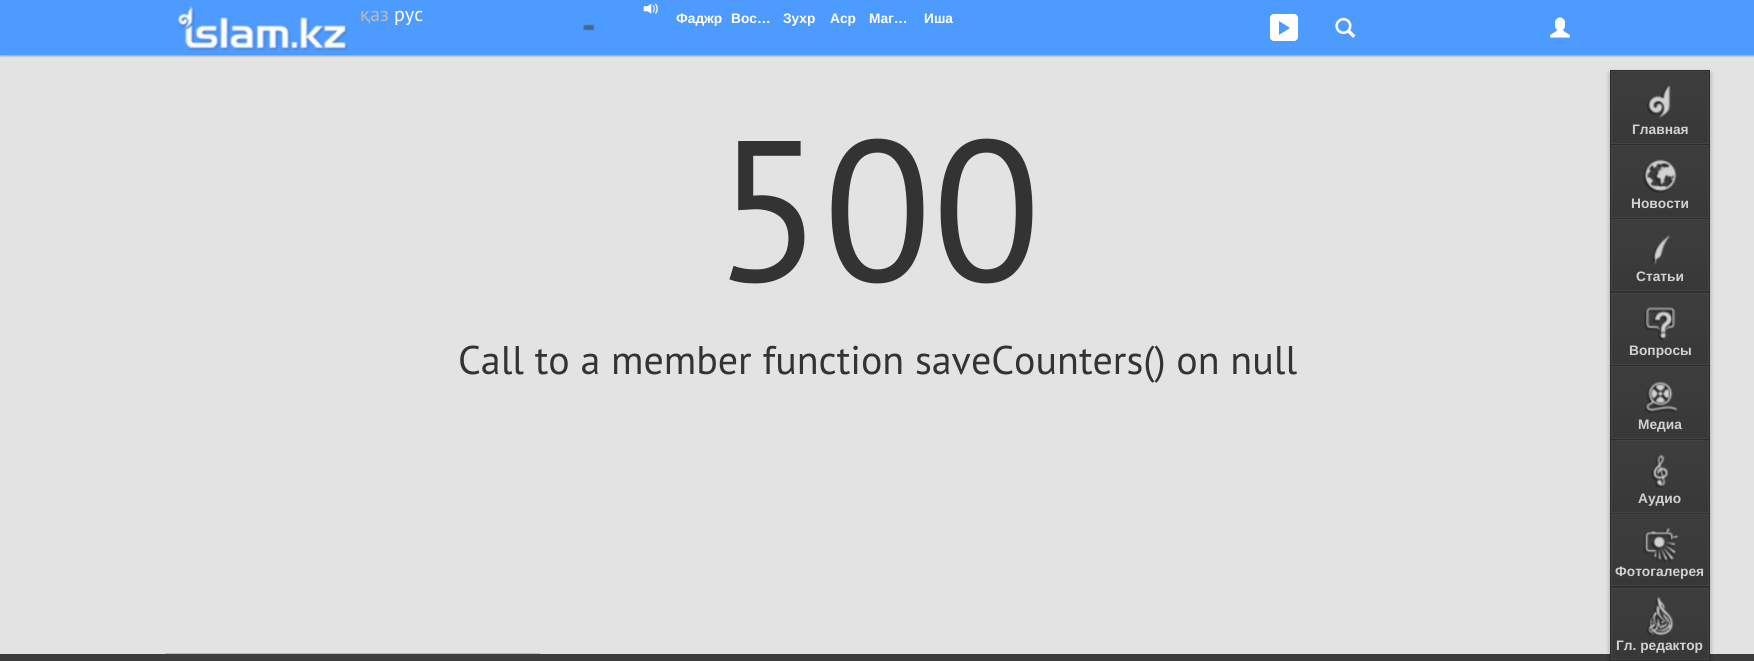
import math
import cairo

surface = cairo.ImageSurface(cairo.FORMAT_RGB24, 1754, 661)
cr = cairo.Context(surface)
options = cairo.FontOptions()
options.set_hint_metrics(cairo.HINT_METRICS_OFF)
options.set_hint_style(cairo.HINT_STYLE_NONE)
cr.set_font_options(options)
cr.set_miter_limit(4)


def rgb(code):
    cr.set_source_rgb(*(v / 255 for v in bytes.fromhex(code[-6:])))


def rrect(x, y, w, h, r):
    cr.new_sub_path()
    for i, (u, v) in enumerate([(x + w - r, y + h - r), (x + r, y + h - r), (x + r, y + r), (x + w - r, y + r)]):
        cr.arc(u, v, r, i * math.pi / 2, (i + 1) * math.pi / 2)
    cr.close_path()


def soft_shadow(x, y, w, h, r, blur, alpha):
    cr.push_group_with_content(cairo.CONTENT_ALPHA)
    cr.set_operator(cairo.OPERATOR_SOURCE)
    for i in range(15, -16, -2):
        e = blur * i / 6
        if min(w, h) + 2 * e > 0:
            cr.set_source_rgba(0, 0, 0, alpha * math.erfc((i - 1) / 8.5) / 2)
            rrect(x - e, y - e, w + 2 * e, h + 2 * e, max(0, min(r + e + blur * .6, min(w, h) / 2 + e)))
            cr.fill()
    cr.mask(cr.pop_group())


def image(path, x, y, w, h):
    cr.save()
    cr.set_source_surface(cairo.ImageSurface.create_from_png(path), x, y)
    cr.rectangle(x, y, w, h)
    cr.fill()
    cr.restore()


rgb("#e3e3e3")
cr.paint()
rgb("#999999")
soft_shadow(0, 1, 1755, 55, 0, 1, 1)
rgb("#4e9bff")
cr.rectangle(0, 0, 1754, 55)
cr.fill()
image("img/1.png", 177, 6, 171, 45)
image("img/2.png", 643, 3, 15, 11)
image("img/3.png", 583, 24, 12, 7)
rgb("#ffffff")
rrect(1270, 14, 28, 27, 4)
cr.fill()
rgb("#4e9bff")
cr.new_path()
cr.move_to(1279, 35)
cr.line_to(1290, 28)
cr.line_to(1279, 21)
cr.close_path()
cr.fill()
image("img/4.png", 1335, 17, 21, 21)
image("img/5.png", 1550, 17, 20, 21)
rgb("#3d3d3d")
cr.rectangle(0, 654, 1754, 7)
cr.fill()
rgb("#000000")
soft_shadow(1610, 73, 100, 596, 0, 2.5, 0.3)
cr.rectangle(1610.5, 70.5, 99, 74)
rgb("#2c2c2c")
cr.set_line_width(1)
cr.stroke()
image("img/6.png", 1612, 72, 96, 71)
cr.rectangle(1611.5, 71.5, 97, 72)
rgb("#434343")
cr.stroke()
image("img/7.png", 1647, 85, 24, 33)
cr.rectangle(1610.5, 144.5, 99, 74)
rgb("#2c2c2c")
cr.stroke()
image("img/8.png", 1612, 146, 96, 71)
cr.rectangle(1611.5, 145.5, 97, 72)
rgb("#434343")
cr.stroke()
image("img/9.png", 1643, 159, 34, 34)
cr.rectangle(1610.5, 218.5, 99, 74)
rgb("#2c2c2c")
cr.stroke()
image("img/10.png", 1611, 218, 98, 72)
cr.rectangle(1611.5, 219.5, 97, 71)
rgb("#434343")
cr.stroke()
image("img/11.png", 1652, 234, 18, 31)
cr.rectangle(1610.5, 291.5, 99, 74)
rgb("#2c2c2c")
cr.stroke()
image("img/12.png", 1611, 292, 98, 72)
cr.rectangle(1611.5, 293.5, 97, 71)
rgb("#434343")
cr.stroke()
image("img/13.png", 1644, 307, 32, 34)
cr.rectangle(1610.5, 365.5, 99, 74)
rgb("#2c2c2c")
cr.stroke()
image("img/6.png", 1612, 367, 96, 71)
cr.rectangle(1611.5, 366.5, 97, 72)
rgb("#434343")
cr.stroke()
image("img/14.png", 1644, 381, 34, 32)
cr.rectangle(1610.5, 439.5, 99, 74)
rgb("#2c2c2c")
cr.stroke()
image("img/15.png", 1612, 441, 96, 71)
cr.rectangle(1611.5, 440.5, 97, 72)
rgb("#434343")
cr.stroke()
image("img/16.png", 1651, 454, 18, 34)
cr.rectangle(1610.5, 513.5, 99, 74)
rgb("#2c2c2c")
cr.stroke()
image("img/17.png", 1611, 513, 98, 72)
cr.rectangle(1611.5, 514.5, 97, 71)
rgb("#434343")
cr.stroke()
image("img/18.png", 1643, 528, 36, 34)
cr.rectangle(1610.5, 586.5, 99, 74)
rgb("#2c2c2c")
cr.stroke()
image("img/19.png", 1611, 587, 98, 72)
cr.rectangle(1611.5, 588.5, 97, 71)
rgb("#434343")
cr.stroke()
image("img/20.png", 1646, 597, 28, 39)
rgb("#b9b9b9")
cr.rectangle(165, 653, 375, 1)
cr.fill()
cr.select_font_face("PT Sans")
cr.set_font_size(20)
rgb("#bbbbbb")
cr.move_to(360, 21)
cr.show_text("қаз")
rgb("#ffffff")
cr.move_to(394, 21)
cr.show_text("рус")
cr.select_font_face("Liberation Sans", cairo.FONT_SLANT_NORMAL, cairo.FONT_WEIGHT_BOLD)
cr.set_font_size(13.75)
for x, y, s in [
    (676, 23, "Фаджр"),
    (731, 23, "Вос…"),
    (783, 23, "Зухр"),
    (830, 23, "Аср"),
    (869, 23, "Маг…"),
    (924, 23, "Иша"),
]:
    cr.move_to(x, y)
    cr.show_text(s)
cr.select_font_face("PT Sans")
cr.set_font_size(200)
rgb("#333333")
cr.move_to(714, 281)
cr.show_text("500")
cr.set_font_size(40)
cr.move_to(458, 374)
cr.show_text("Call to a member function saveCounters() on null")
cr.select_font_face("Liberation Sans", cairo.FONT_SLANT_NORMAL, cairo.FONT_WEIGHT_BOLD)
cr.set_font_size(13.75)
rgb("#d2d2d2")
for x, y, s in [
    (1632, 134, "Главная"),
    (1631, 208, "Новости"),
    (1636, 281, "Статьи"),
    (1629, 355, "Вопросы"),
    (1638, 429, "Медиа"),
    (1638, 503, "Аудио"),
    (1615, 576, "Фотогалерея"),
    (1616, 650, "Гл. редактор"),
]:
    cr.move_to(x, y)
    cr.show_text(s)
surface.write_to_png("page.png")
